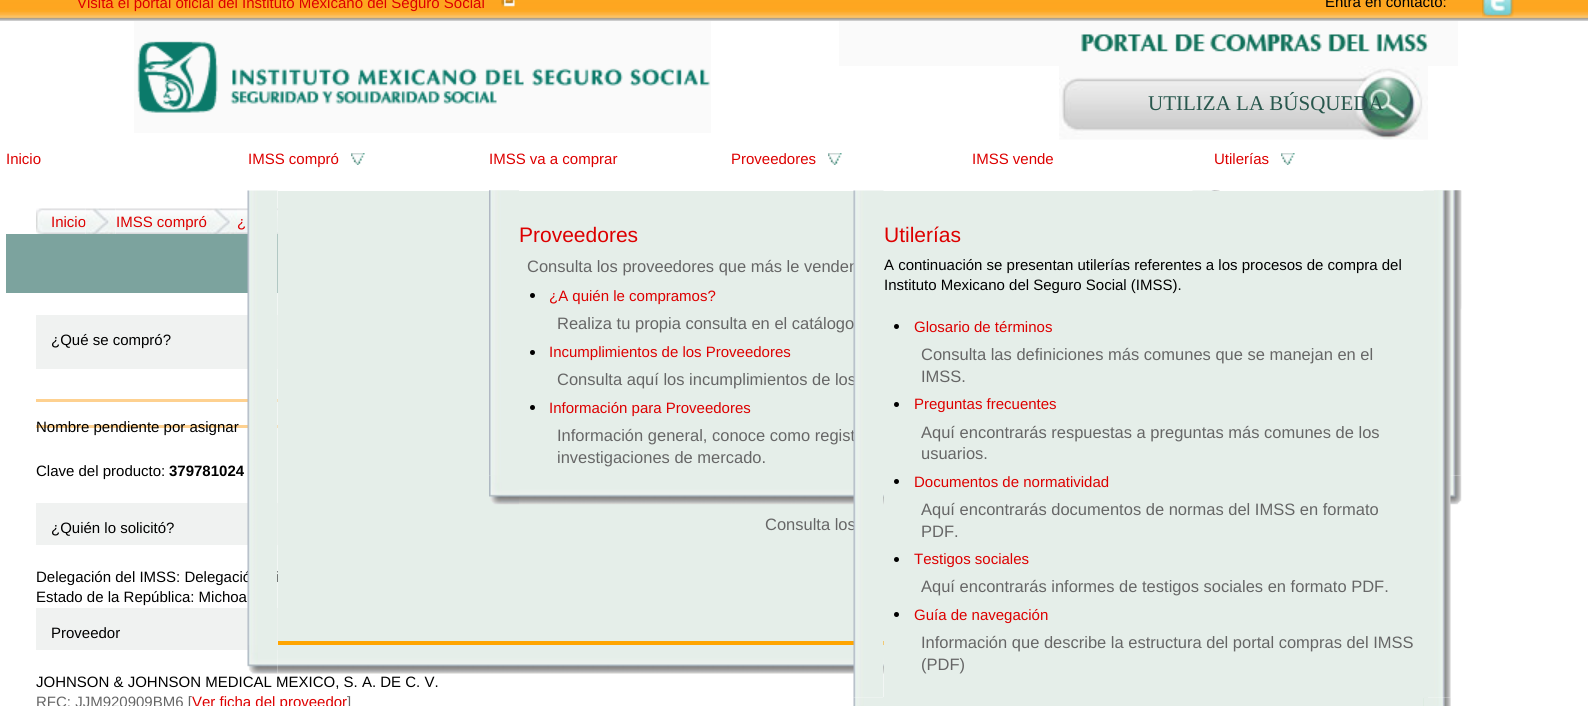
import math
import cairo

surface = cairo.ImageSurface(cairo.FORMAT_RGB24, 1588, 706)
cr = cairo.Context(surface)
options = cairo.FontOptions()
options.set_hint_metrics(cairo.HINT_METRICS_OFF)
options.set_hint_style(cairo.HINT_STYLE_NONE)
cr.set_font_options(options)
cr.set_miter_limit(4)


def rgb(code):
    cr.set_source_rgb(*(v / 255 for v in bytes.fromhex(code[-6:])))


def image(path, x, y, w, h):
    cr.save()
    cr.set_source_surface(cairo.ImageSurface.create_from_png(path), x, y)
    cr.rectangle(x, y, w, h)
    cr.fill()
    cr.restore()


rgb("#ffffff")
cr.paint()
image("img/1.png", 0, 0, 1588, 21)
image("img/2.png", 501, 0, 17, 8)
image("img/3.png", 1482, 0, 32, 17)
image("img/4.png", 134, 21, 577, 112)
image("img/5.png", 839, 21, 619, 45)
image("img/6.png", 1059, 66, 369, 74)
image("img/7.png", 351, 153, 14, 12)
image("img/8.png", 828, 153, 14, 12)
image("img/8.png", 1281, 153, 14, 12)
image("img/9.png", 489, 190, 30, 1)
image("img/10.png", 1434, 190, 28, 94)
image("img/11.png", 1460, 283, 2, 27)
image("img/13.png", 1434, 190, 28, 286)
image("img/16.png", 1450, 475, 12, 30)
rgb("#deebe2")
cr.rectangle(1423, 697, 5, 9)
cr.fill()
rgb("#e5eee9")
cr.rectangle(884, 191, 540, 507)
cr.fill()
rgb("#000000")
cr.arc(896.5, 326.5, 2.5, 0, 2 * math.pi)
cr.fill()
cr.arc(896.5, 404.5, 2.5, 0, 2 * math.pi)
cr.fill()
cr.arc(896.5, 481.5, 2.5, 0, 2 * math.pi)
cr.fill()
cr.arc(896.5, 559.5, 2.5, 0, 2 * math.pi)
cr.fill()
cr.arc(896.5, 614.5, 2.5, 0, 2 * math.pi)
cr.fill()
image("img/18.png", 1423, 190, 28, 508)
image("img/20.png", 1424, 697, 27, 9)
image("img/22.png", 1192, 190, 28, 1)
rgb("#ffa500")
cr.rectangle(278, 641, 606, 4)
cr.fill()
rgb("#f0f2f1")
cr.rectangle(36, 608, 242, 42)
cr.fill()
image("img/23.png", 247, 645, 31, 29)
image("img/24.png", 277, 645, 607, 29)
image("img/25.png", 36, 208, 15, 26)
image("img/26.png", 51, 208, 35, 26)
image("img/29.png", 207, 208, 30, 26)
image("img/30.png", 237, 208, 41, 26)
for x, y, w, h, color in [
    (6, 234, 272, 59, "#7ca39e"),
    (36, 315, 242, 54, "#f0f2f1"),
    (36, 399, 242, 3, "#fed190"),
    (36, 425, 242, 3, "#fed190"),
    (36, 503, 242, 42, "#f0f2f1"),
]:
    rgb(color)
    cr.rectangle(x, y, w, h)
    cr.fill()
cr.select_font_face("Liberation Sans")
cr.set_font_size(15)
rgb("#dd0000")
cr.move_to(77, 8)
cr.show_text("Visita el portal oficial del Instituto Mexicano del Seguro Social")
rgb("#000000")
cr.move_to(1325, 7)
cr.show_text("Entra en contacto:")
cr.select_font_face("Liberation Serif")
cr.set_font_size(21)
rgb("#28574d")
cr.move_to(1148, 110)
cr.show_text("UTILIZA LA BÚSQUEDA")
cr.select_font_face("Liberation Sans")
cr.set_font_size(15)
rgb("#dd0000")
for x, y, s in [
    (6, 164, "Inicio"),
    (248, 164, "IMSS compró"),
    (489, 164, "IMSS va a comprar"),
    (731, 164, "Proveedores"),
    (972, 164, "IMSS vende"),
    (1214, 164, "Utilerías"),
]:
    cr.move_to(x, y)
    cr.show_text(s)
cr.set_font_size(21)
cr.move_to(884, 242)
cr.show_text("Utilerías")
cr.set_font_size(15)
rgb("#000000")
cr.move_to(884, 290)
cr.show_text("Instituto Mexicano del Seguro Social (IMSS).")
rgb("#dd0000")
cr.move_to(914, 332)
cr.show_text("Glosario de términos")
cr.set_font_size(16.5)
rgb("#666666")
cr.move_to(921, 360)
cr.show_text("Consulta las definiciones más comunes que se manejan en el")
cr.move_to(921, 382)
cr.show_text("IMSS.")
cr.set_font_size(15)
rgb("#dd0000")
cr.move_to(914, 409)
cr.show_text("Preguntas frecuentes")
cr.set_font_size(16.5)
rgb("#666666")
cr.move_to(921, 438)
cr.show_text("Aquí encontrarás respuestas a preguntas más comunes de los")
cr.move_to(921, 459)
cr.show_text("usuarios.")
cr.set_font_size(15)
rgb("#dd0000")
cr.move_to(914, 487)
cr.show_text("Documentos de normatividad")
cr.set_font_size(16.5)
rgb("#666666")
cr.move_to(921, 515)
cr.show_text("Aquí encontrarás documentos de normas del IMSS en formato")
cr.move_to(921, 537)
cr.show_text("PDF.")
cr.set_font_size(15)
rgb("#dd0000")
cr.move_to(914, 564)
cr.show_text("Testigos sociales")
cr.set_font_size(16.5)
rgb("#666666")
cr.move_to(921, 592)
cr.show_text("Aquí encontrarás informes de testigos sociales en formato PDF.")
cr.set_font_size(15)
rgb("#dd0000")
cr.move_to(914, 620)
cr.show_text("Guía de navegación")
cr.set_font_size(16.5)
rgb("#666666")
cr.move_to(921, 648)
cr.show_text("Información que describe la estructura del portal compras del IMSS")
cr.move_to(921, 670)
cr.show_text("(PDF)")
cr.set_font_size(15)
rgb("#dd0000")
cr.move_to(51, 227)
cr.show_text("Inicio")
image("img/27.png", 85, 208, 31, 26)
image("img/28.png", 115, 208, 92, 26)
cr.move_to(116, 227)
cr.show_text("IMSS compró")
cr.move_to(237, 227)
cr.show_text("¿")
rgb("#000000")
for x, y, s in [
    (51, 345, "¿Qué se compró?"),
    (36, 432, "Nombre pendiente por asignar"),
    (36, 476, "Clave del producto:"),
]:
    cr.move_to(x, y)
    cr.show_text(s)
cr.select_font_face("Liberation Sans", cairo.FONT_SLANT_NORMAL, cairo.FONT_WEIGHT_BOLD)
cr.move_to(169, 476)
cr.show_text("379781024")
cr.select_font_face("Liberation Sans")
for x, y, s in [
    (51, 533, "¿Quién lo solicitó?"),
    (36, 582, "Delegación del IMSS: Delegació"),
    (276, 582, "i"),
]:
    cr.move_to(x, y)
    cr.show_text(s)
rgb("#e5eee9")
cr.rectangle(278, 191, 606, 450)
cr.fill()
cr.set_font_size(16.5)
rgb("#666666")
for x, y, s in [
    (557, 441, "Información general, conoce como regist"),
    (557, 385, "Consulta aquí los incumplimientos de los"),
    (527, 272, "Consulta los proveedores que más le venden"),
]:
    cr.move_to(x, y)
    cr.show_text(s)
image("img/15.png", 519, 476, 365, 29)
cr.move_to(765, 530)
cr.show_text("Consulta los")
image("img/17.png", 853, 190, 31, 508)
cr.set_font_size(15)
rgb("#000000")
cr.move_to(884, 270)
cr.show_text("A continuación se presentan utilerías referentes a los procesos de compra del")
rgb("#e5eee9")
cr.rectangle(883, 697, 540, 9)
cr.fill()
image("img/19.png", 853, 697, 30, 9)
cr.set_font_size(16.5)
rgb("#666666")
cr.move_to(557, 463)
cr.show_text("investigaciones de mercado.")
cr.set_font_size(15)
rgb("#dd0000")
cr.move_to(549, 413)
cr.show_text("Información para Proveedores")
rgb("#000000")
cr.new_path()
cr.arc(532.5, 407.5, 2.5, 0, 2 * math.pi)
cr.fill()
rgb("#dd0000")
cr.move_to(549, 357)
cr.show_text("Incumplimientos de los Proveedores")
rgb("#000000")
cr.new_path()
cr.arc(532.5, 352.5, 2.5, 0, 2 * math.pi)
cr.fill()
cr.set_font_size(16.5)
rgb("#666666")
cr.move_to(557, 329)
cr.show_text("Realiza tu propia consulta en el catálogo")
cr.set_font_size(15)
rgb("#dd0000")
cr.move_to(549, 301)
cr.show_text("¿A quién le compramos?")
rgb("#000000")
cr.new_path()
cr.arc(532.5, 295.5, 2.5, 0, 2 * math.pi)
cr.fill()
cr.set_font_size(21)
rgb("#dd0000")
cr.move_to(519, 242)
cr.show_text("Proveedores")
image("img/12.png", 489, 190, 30, 286)
image("img/14.png", 489, 475, 30, 30)
image("img/21.png", 247, 190, 31, 455)
cr.set_font_size(15)
rgb("#000000")
for x, y, s in [
    (36, 602, "Estado de la República: Michoa"),
    (51, 638, "Proveedor"),
    (36, 687, "JOHNSON & JOHNSON MEDICAL MEXICO, S. A. DE C. V."),
]:
    cr.move_to(x, y)
    cr.show_text(s)
rgb("#666666")
cr.move_to(36, 707)
cr.show_text("RFC: JJM920909BM6 [")
rgb("#dd0000")
cr.move_to(192, 707)
cr.show_text("Ver ficha del proveedor")
rgb("#666666")
cr.move_to(347, 707)
cr.show_text("]")
surface.write_to_png("page.png")
